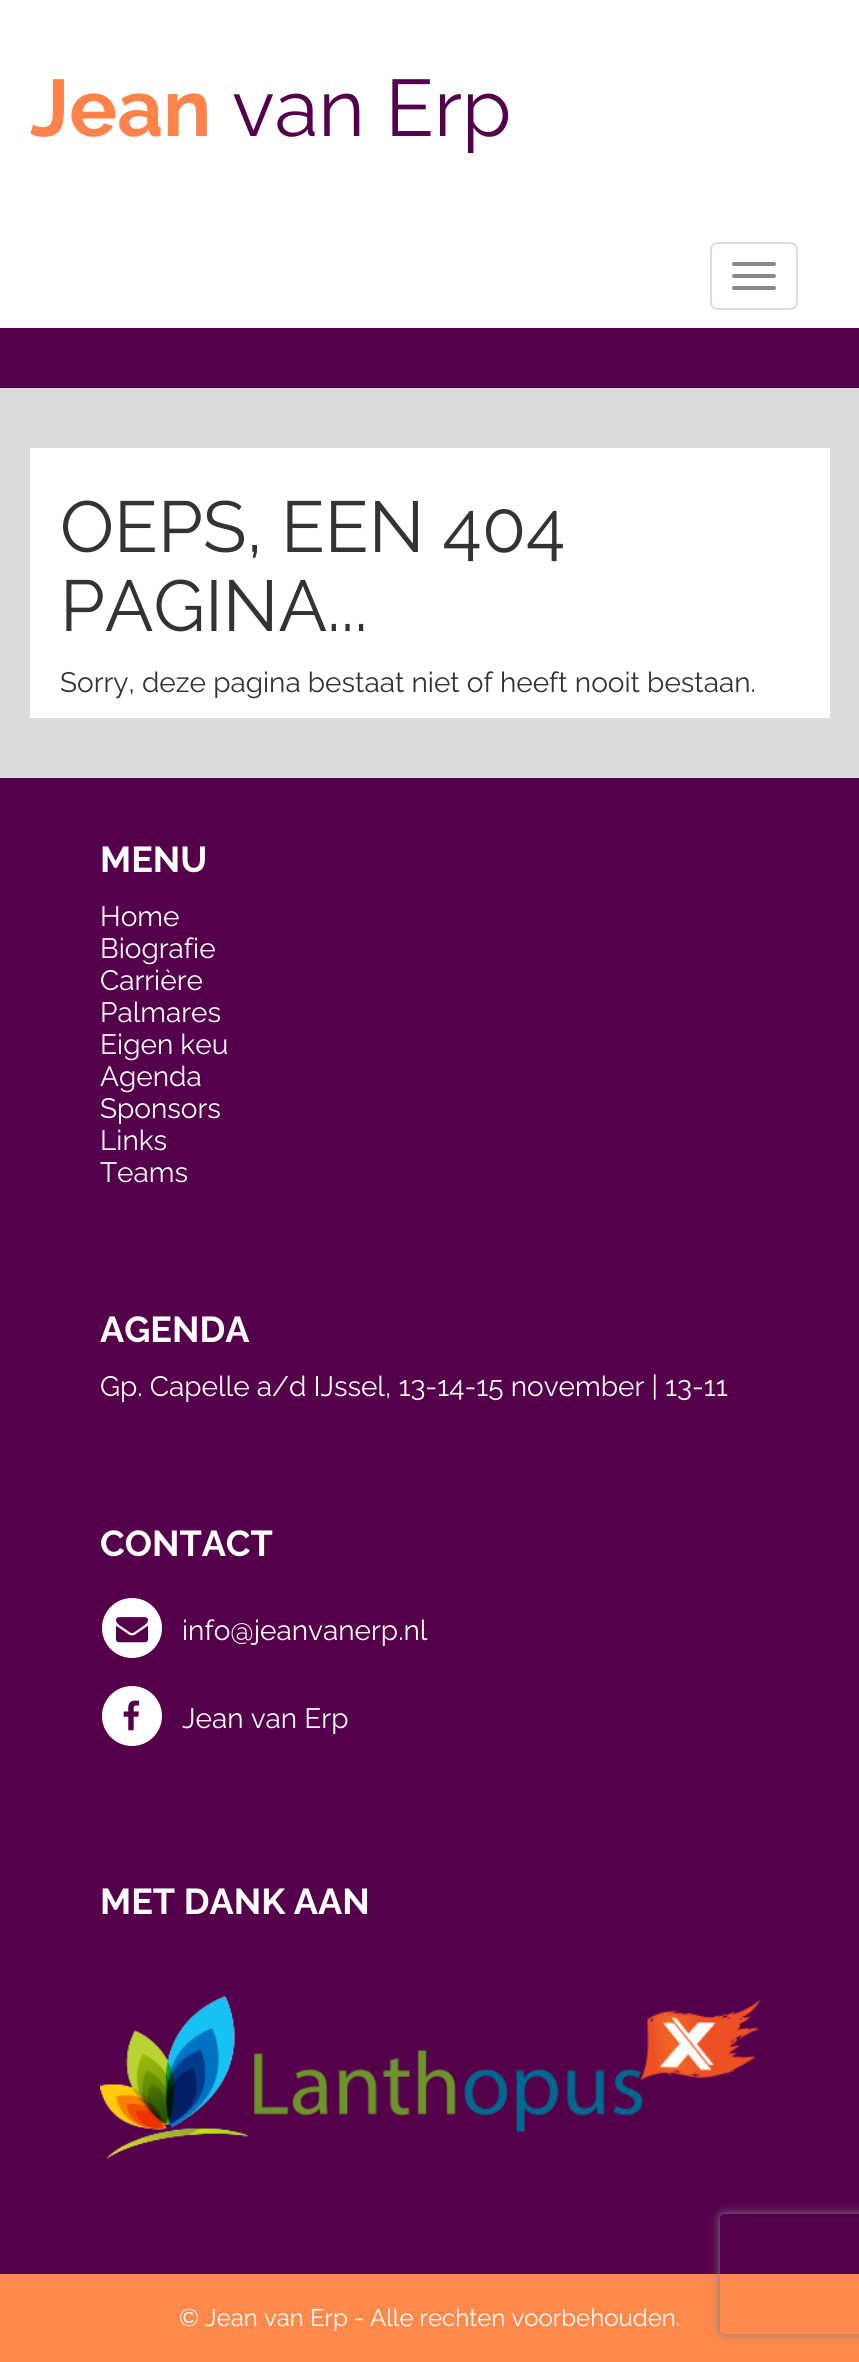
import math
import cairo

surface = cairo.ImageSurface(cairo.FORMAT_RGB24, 859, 2362)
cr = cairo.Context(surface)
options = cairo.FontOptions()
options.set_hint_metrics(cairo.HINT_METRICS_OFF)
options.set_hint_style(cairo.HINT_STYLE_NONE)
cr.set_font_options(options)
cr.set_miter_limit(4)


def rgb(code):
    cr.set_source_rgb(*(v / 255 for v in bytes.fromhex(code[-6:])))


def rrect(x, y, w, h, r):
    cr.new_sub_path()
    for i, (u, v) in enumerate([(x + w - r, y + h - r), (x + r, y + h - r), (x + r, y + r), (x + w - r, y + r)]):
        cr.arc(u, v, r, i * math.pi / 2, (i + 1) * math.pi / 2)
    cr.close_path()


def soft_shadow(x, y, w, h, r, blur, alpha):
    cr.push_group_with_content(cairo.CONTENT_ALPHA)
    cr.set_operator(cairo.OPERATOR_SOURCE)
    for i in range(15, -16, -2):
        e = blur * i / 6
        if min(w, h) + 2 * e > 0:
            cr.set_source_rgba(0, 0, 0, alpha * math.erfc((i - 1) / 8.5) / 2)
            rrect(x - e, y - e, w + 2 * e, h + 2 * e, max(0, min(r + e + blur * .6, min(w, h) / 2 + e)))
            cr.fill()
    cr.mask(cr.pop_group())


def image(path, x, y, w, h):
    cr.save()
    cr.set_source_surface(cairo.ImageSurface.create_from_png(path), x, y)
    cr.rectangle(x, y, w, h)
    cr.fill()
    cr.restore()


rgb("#ffffff")
cr.paint()
rrect(711, 243, 86, 66, 7)
rgb("#dddddd")
cr.stroke()
rgb("#888888")
rrect(732, 262, 44, 4, 2)
cr.fill()
rrect(732, 274, 44, 4, 2)
cr.fill()
rrect(732, 286, 44, 4, 2)
cr.fill()
for x, y, w, h, color in [
    (0, 328, 859, 60, "#55004b"),
    (0, 388, 859, 390, "#dcdcdc"),
    (30, 448, 800, 270, "#ffffff"),
    (0, 778, 859, 1496, "#55004b"),
]:
    rgb(color)
    cr.rectangle(x, y, w, h)
    cr.fill()
rgb("#ffffff")
cr.arc(132, 1628, 30, 0, 2 * math.pi)
cr.fill()
image("img/1.png", 116, 1617, 32, 26)
cr.arc(132, 1716, 30, 0, 2 * math.pi)
cr.fill()
image("img/2.png", 123, 1700, 17, 31)
image("img/3.png", 100, 1996, 660, 163)
rgb("#ff894b")
cr.rectangle(0, 2274, 859, 88)
cr.fill()
cr.save()
cr.set_fill_rule(cairo.FILL_RULE_EVEN_ODD)
cr.new_path()
cr.move_to(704, 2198)
cr.line_to(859, 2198)
cr.line_to(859, 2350)
cr.line_to(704, 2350)
cr.close_path()
cr.move_to(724, 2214)
cr.line_to(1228, 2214)
cr.curve_to(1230, 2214, 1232, 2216, 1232, 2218)
cr.line_to(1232, 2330)
cr.curve_to(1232, 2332, 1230, 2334, 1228, 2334)
cr.line_to(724, 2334)
cr.curve_to(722, 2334, 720, 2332, 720, 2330)
cr.line_to(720, 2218)
cr.curve_to(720, 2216, 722, 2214, 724, 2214)
cr.close_path()
cr.clip()
rgb("#808080")
soft_shadow(720, 2214, 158, 120, 4, 5, 1)
cr.restore()
cr.select_font_face("Raleway", cairo.FONT_SLANT_NORMAL, cairo.FONT_WEIGHT_BOLD)
cr.set_font_size(80)
rgb("#ff824b")
cr.move_to(30, 136)
cr.show_text("Jean")
cr.select_font_face("Raleway")
rgb("#55004b")
cr.move_to(232, 136)
cr.show_text("van Erp")
cr.set_font_size(72)
rgb("#333333")
cr.move_to(60, 552)
cr.show_text("OEPS, EEN 404")
cr.move_to(60, 631)
cr.show_text("PAGINA...")
cr.set_font_size(28)
cr.move_to(60, 692)
cr.show_text("Sorry, deze pagina bestaat niet of heeft nooit bestaan.")
cr.select_font_face("Raleway", cairo.FONT_SLANT_NORMAL, cairo.FONT_WEIGHT_BOLD)
cr.set_font_size(36)
rgb("#ffffff")
cr.move_to(100, 872)
cr.show_text("MENU")
cr.select_font_face("Raleway")
cr.set_font_size(28)
for x, y, s in [
    (100, 926, "Home"),
    (100, 958, "Biografie"),
    (100, 990, "Carrière"),
    (100, 1022, "Palmares"),
    (100, 1054, "Eigen keu"),
    (100, 1086, "Agenda"),
    (100, 1118, "Sponsors"),
    (100, 1150, "Links"),
    (100, 1182, "Teams"),
]:
    cr.move_to(x, y)
    cr.show_text(s)
cr.select_font_face("Raleway", cairo.FONT_SLANT_NORMAL, cairo.FONT_WEIGHT_BOLD)
cr.set_font_size(36)
cr.move_to(100, 1342)
cr.show_text("AGENDA")
cr.select_font_face("Raleway")
cr.set_font_size(28)
cr.move_to(100, 1396)
cr.show_text("Gp. Capelle a/d IJssel, 13-14-15 november | 13-11")
cr.select_font_face("Raleway", cairo.FONT_SLANT_NORMAL, cairo.FONT_WEIGHT_BOLD)
cr.set_font_size(36)
cr.move_to(100, 1556)
cr.show_text("CONTACT")
cr.select_font_face("Raleway")
cr.set_font_size(28)
cr.move_to(182, 1640)
cr.show_text("info@jeanvanerp.nl")
cr.move_to(182, 1728)
cr.show_text("Jean van Erp")
cr.select_font_face("Raleway", cairo.FONT_SLANT_NORMAL, cairo.FONT_WEIGHT_BOLD)
cr.set_font_size(36)
cr.move_to(100, 1914)
cr.show_text("MET DANK AAN")
cr.select_font_face("Raleway")
cr.set_font_size(24)
cr.move_to(179, 2326)
cr.show_text("© Jean van Erp - Alle rechten voorbehouden.")
surface.write_to_png("page.png")
